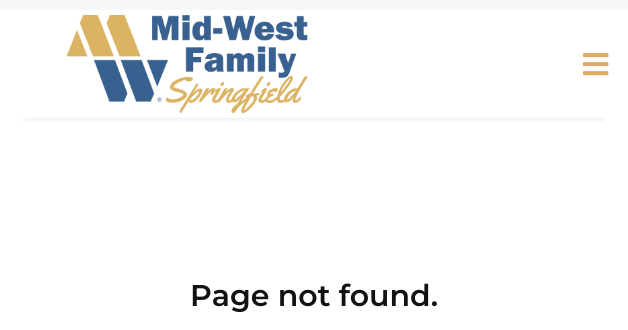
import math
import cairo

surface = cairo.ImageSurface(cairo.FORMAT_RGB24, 628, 330)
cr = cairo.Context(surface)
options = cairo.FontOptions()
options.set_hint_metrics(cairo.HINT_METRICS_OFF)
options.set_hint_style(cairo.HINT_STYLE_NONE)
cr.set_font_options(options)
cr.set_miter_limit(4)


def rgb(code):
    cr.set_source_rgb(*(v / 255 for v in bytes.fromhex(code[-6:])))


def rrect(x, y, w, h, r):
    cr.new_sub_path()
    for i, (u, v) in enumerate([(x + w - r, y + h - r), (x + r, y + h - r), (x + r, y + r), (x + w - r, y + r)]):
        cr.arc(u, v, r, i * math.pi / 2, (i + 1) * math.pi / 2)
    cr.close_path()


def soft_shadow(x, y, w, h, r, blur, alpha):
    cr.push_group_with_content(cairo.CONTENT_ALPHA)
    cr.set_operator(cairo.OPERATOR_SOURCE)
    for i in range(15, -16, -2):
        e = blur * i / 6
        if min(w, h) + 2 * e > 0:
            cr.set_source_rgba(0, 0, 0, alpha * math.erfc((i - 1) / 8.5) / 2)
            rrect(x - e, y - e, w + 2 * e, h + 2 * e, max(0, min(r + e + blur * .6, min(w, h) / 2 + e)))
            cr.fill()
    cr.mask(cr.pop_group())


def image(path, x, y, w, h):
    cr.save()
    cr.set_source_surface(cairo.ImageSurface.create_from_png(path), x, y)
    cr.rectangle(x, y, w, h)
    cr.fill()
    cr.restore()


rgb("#ffffff")
cr.paint()
rgb("#f7f7f7")
cr.rectangle(0, 0, 628, 10)
cr.fill()
cr.save()
cr.rectangle(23, 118, 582, 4)
cr.clip()
rgb("#000000")
soft_shadow(24, 44, 580, 60, 0, 10, 0.58)
cr.restore()
image("img/1.png", 66, 15, 242, 98)
image("img/2.png", 583, 53, 26, 23)
cr.select_font_face("Montserrat SemiBold")
cr.set_font_size(30)
rgb("#121212")
cr.move_to(190, 306)
cr.show_text("Page not found.")
surface.write_to_png("page.png")
